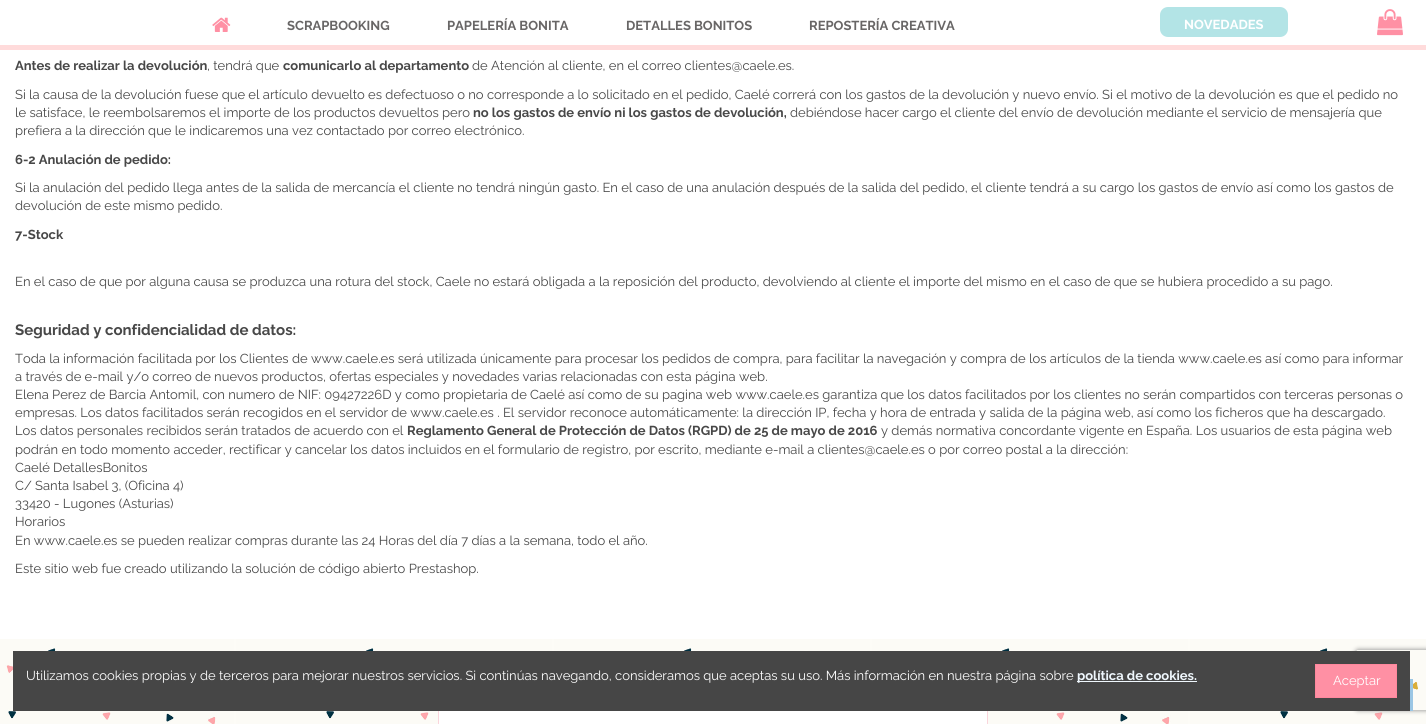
import math
import cairo

surface = cairo.ImageSurface(cairo.FORMAT_RGB24, 1426, 724)
cr = cairo.Context(surface)
options = cairo.FontOptions()
options.set_hint_metrics(cairo.HINT_METRICS_OFF)
options.set_hint_style(cairo.HINT_STYLE_NONE)
cr.set_font_options(options)
cr.set_miter_limit(4)


def rgb(code):
    cr.set_source_rgb(*(v / 255 for v in bytes.fromhex(code[-6:])))


def rrect(x, y, w, h, r):
    cr.new_sub_path()
    for i, (u, v) in enumerate([(x + w - r, y + h - r), (x + r, y + h - r), (x + r, y + r), (x + w - r, y + r)]):
        cr.arc(u, v, r, i * math.pi / 2, (i + 1) * math.pi / 2)
    cr.close_path()


def soft_shadow(x, y, w, h, r, blur, alpha):
    cr.push_group_with_content(cairo.CONTENT_ALPHA)
    cr.set_operator(cairo.OPERATOR_SOURCE)
    for i in range(15, -16, -2):
        e = blur * i / 6
        if min(w, h) + 2 * e > 0:
            cr.set_source_rgba(0, 0, 0, alpha * math.erfc((i - 1) / 8.5) / 2)
            rrect(x - e, y - e, w + 2 * e, h + 2 * e, max(0, min(r + e + blur * .6, min(w, h) / 2 + e)))
            cr.fill()
    cr.mask(cr.pop_group())


def image(path, x, y, w, h):
    cr.save()
    cr.set_source_surface(cairo.ImageSurface.create_from_png(path), x, y)
    cr.rectangle(x, y, w, h)
    cr.fill()
    cr.restore()


rgb("#ffffff")
cr.paint()
rgb("#ffdbdb")
cr.rectangle(0, 45, 1426, 5)
cr.fill()
image("img/1.png", 212, 17, 19, 15)
rgb("#b3e4e6")
rrect(1160, 7, 128, 30, 8)
cr.fill()
image("img/2.png", 1377, 9, 26, 27)
image("img/3.png", 0, 639, 1426, 85)
rgb("#ffffff")
cr.rectangle(439, 711, 548, 13)
cr.fill()
cr.rectangle(438.5, 684.5, 549, 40)
rgb("#fad5dc")
cr.set_line_width(1)
cr.stroke()
cr.save()
cr.set_fill_rule(cairo.FILL_RULE_EVEN_ODD)
cr.new_path()
cr.move_to(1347, 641)
cr.line_to(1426, 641)
cr.line_to(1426, 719)
cr.line_to(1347, 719)
cr.close_path()
cr.move_to(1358, 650)
cr.line_to(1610, 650)
cr.curve_to(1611, 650, 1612, 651, 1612, 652)
cr.line_to(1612, 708)
cr.curve_to(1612, 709, 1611, 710, 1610, 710)
cr.line_to(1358, 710)
cr.curve_to(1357, 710, 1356, 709, 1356, 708)
cr.line_to(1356, 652)
cr.curve_to(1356, 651, 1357, 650, 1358, 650)
cr.close_path()
cr.clip()
rgb("#808080")
soft_shadow(1356, 650, 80, 60, 2, 2.5, 1)
cr.restore()
rgb("#464646")
cr.rectangle(13, 651, 1397, 60)
cr.fill()
rgb("#eff7fd")
cr.rectangle(1077, 681, 120, 1)
cr.fill()
rgb("#ff90a4")
cr.rectangle(1315.5, 664.5, 81, 33)
cr.fill_preserve()
rgb("#ff879d")
cr.stroke()
rgb("#9bc6e4")
cr.rectangle(1410, 679, 3, 32)
cr.fill()
cr.select_font_face("Raleway", cairo.FONT_SLANT_NORMAL, cairo.FONT_WEIGHT_BOLD)
cr.set_font_size(13)
rgb("#686666")
for x, y, s in [
    (287, 30, "SCRAPBOOKING"),
    (447, 30, "PAPELERÍA BONITA"),
    (626, 30, "DETALLES BONITOS"),
    (809, 30, "REPOSTERÍA CREATIVA"),
]:
    cr.move_to(x, y)
    cr.show_text(s)
rgb("#ffffff")
cr.move_to(1184, 29)
cr.show_text("NOVEDADES")
rgb("#484848")
cr.move_to(15, 70)
cr.show_text("Antes de realizar la devolución")
cr.select_font_face("Raleway")
cr.move_to(207, 70)
cr.show_text(", tendrá que")
cr.select_font_face("Raleway", cairo.FONT_SLANT_NORMAL, cairo.FONT_WEIGHT_BOLD)
cr.move_to(283, 70)
cr.show_text("comunicarlo al departamento")
cr.select_font_face("Raleway")
for x, y, s in [
    (472, 70, "de Atención al cliente, en el correo clientes@caele.es."),
    (15, 99, "Si la causa de la devolución fuese que el artículo devuelto es defectuoso o no corresponde a lo solicitado en el pedido, Caelé correrá con los gastos de la devolución y nuevo envío. Si el motivo de la devolución es que el pedido no"),
    (15, 117, "le satisface, le reembolsaremos el importe de los productos devueltos pero"),
]:
    cr.move_to(x, y)
    cr.show_text(s)
cr.select_font_face("Raleway", cairo.FONT_SLANT_NORMAL, cairo.FONT_WEIGHT_BOLD)
cr.move_to(473, 117)
cr.show_text("no los gastos de envío ni los gastos de devolución,")
cr.select_font_face("Raleway")
cr.move_to(790, 117)
cr.show_text("debiéndose hacer cargo el cliente del envío de devolución mediante el servicio de mensajería que")
cr.move_to(15, 135)
cr.show_text("prefiera a la dirección que le indicaremos una vez contactado por correo electrónico.")
cr.select_font_face("Raleway", cairo.FONT_SLANT_NORMAL, cairo.FONT_WEIGHT_BOLD)
cr.move_to(15, 164)
cr.show_text("6-2 Anulación de pedido:")
cr.select_font_face("Raleway")
cr.move_to(15, 192)
cr.show_text("Si la anulación del pedido llega antes de la salida de mercancía el cliente no tendrá ningún gasto. En el caso de una anulación después de la salida del pedido, el cliente tendrá a su cargo los gastos de envío así como los gastos de")
cr.move_to(15, 210)
cr.show_text("devolución de este mismo pedido.")
cr.select_font_face("Raleway", cairo.FONT_SLANT_NORMAL, cairo.FONT_WEIGHT_BOLD)
cr.move_to(15, 239)
cr.show_text("7-Stock")
cr.select_font_face("Raleway")
cr.move_to(15, 286)
cr.show_text("En el caso de que por alguna causa se produzca una rotura del stock, Caele no estará obligada a la reposición del producto, devolviendo al cliente el importe del mismo en el caso de que se hubiera procedido a su pago.")
cr.select_font_face("Raleway", cairo.FONT_SLANT_NORMAL, cairo.FONT_WEIGHT_BOLD)
cr.set_font_size(15)
cr.move_to(15, 335)
cr.show_text("Seguridad y confidencialidad de datos:")
cr.select_font_face("Raleway")
cr.set_font_size(13)
for x, y, s in [
    (15, 363, "Toda la información facilitada por los Clientes de www.caele.es será utilizada únicamente para procesar los pedidos de compra, para facilitar la navegación y compra de los artículos de la tienda www.caele.es así como para informar"),
    (15, 381, "a través de e-mail y/o correo de nuevos productos, ofertas especiales y novedades varias relacionadas con esta página web."),
    (15, 399, "Elena Perez de Barcia Antomil, con numero de NIF: 09427226D y como propietaria de Caelé así como de su pagina web www.caele.es garantiza que los datos facilitados por los clientes no serán compartidos con terceras personas o"),
    (15, 417, "empresas. Los datos facilitados serán recogidos en el servidor de www.caele.es . El servidor reconoce automáticamente: la dirección IP, fecha y hora de entrada y salida de la página web, así como los ficheros que ha descargado."),
    (15, 435, "Los datos personales recibidos serán tratados de acuerdo con el"),
]:
    cr.move_to(x, y)
    cr.show_text(s)
cr.select_font_face("Raleway", cairo.FONT_SLANT_NORMAL, cairo.FONT_WEIGHT_BOLD)
cr.move_to(407, 435)
cr.show_text("Reglamento General de Protección de Datos (RGPD) de 25 de mayo de 2016")
cr.select_font_face("Raleway")
for x, y, s in [
    (881, 435, "y demás normativa concordante vigente en España. Los usuarios de esta página web"),
    (15, 454, "podrán en todo momento acceder, rectificar y cancelar los datos incluidos en el formulario de registro, por escrito, mediante e-mail a clientes@caele.es o por correo postal a la dirección:"),
    (15, 472, "Caelé DetallesBonitos"),
    (15, 490, "C/ Santa Isabel 3, (Oficina 4)"),
    (15, 508, "33420 - Lugones (Asturias)"),
    (15, 526, "Horarios"),
    (15, 545, "En www.caele.es se pueden realizar compras durante las 24 Horas del día 7 días a la semana, todo el año."),
    (15, 573, "Este sitio web fue creado utilizando la solución de código abierto Prestashop."),
]:
    cr.move_to(x, y)
    cr.show_text(s)
rgb("#ffffff")
cr.move_to(26, 680)
cr.show_text("Utilizamos cookies propias y de terceros para mejorar nuestros servicios. Si continúas navegando, consideramos que aceptas su uso. Más información en nuestra página sobre")
cr.select_font_face("Raleway", cairo.FONT_SLANT_NORMAL, cairo.FONT_WEIGHT_BOLD)
rgb("#eff7fd")
cr.move_to(1077, 680)
cr.show_text("política de cookies.")
cr.select_font_face("Raleway")
rgb("#ffffff")
cr.move_to(1333, 685)
cr.show_text("Aceptar")
surface.write_to_png("page.png")
